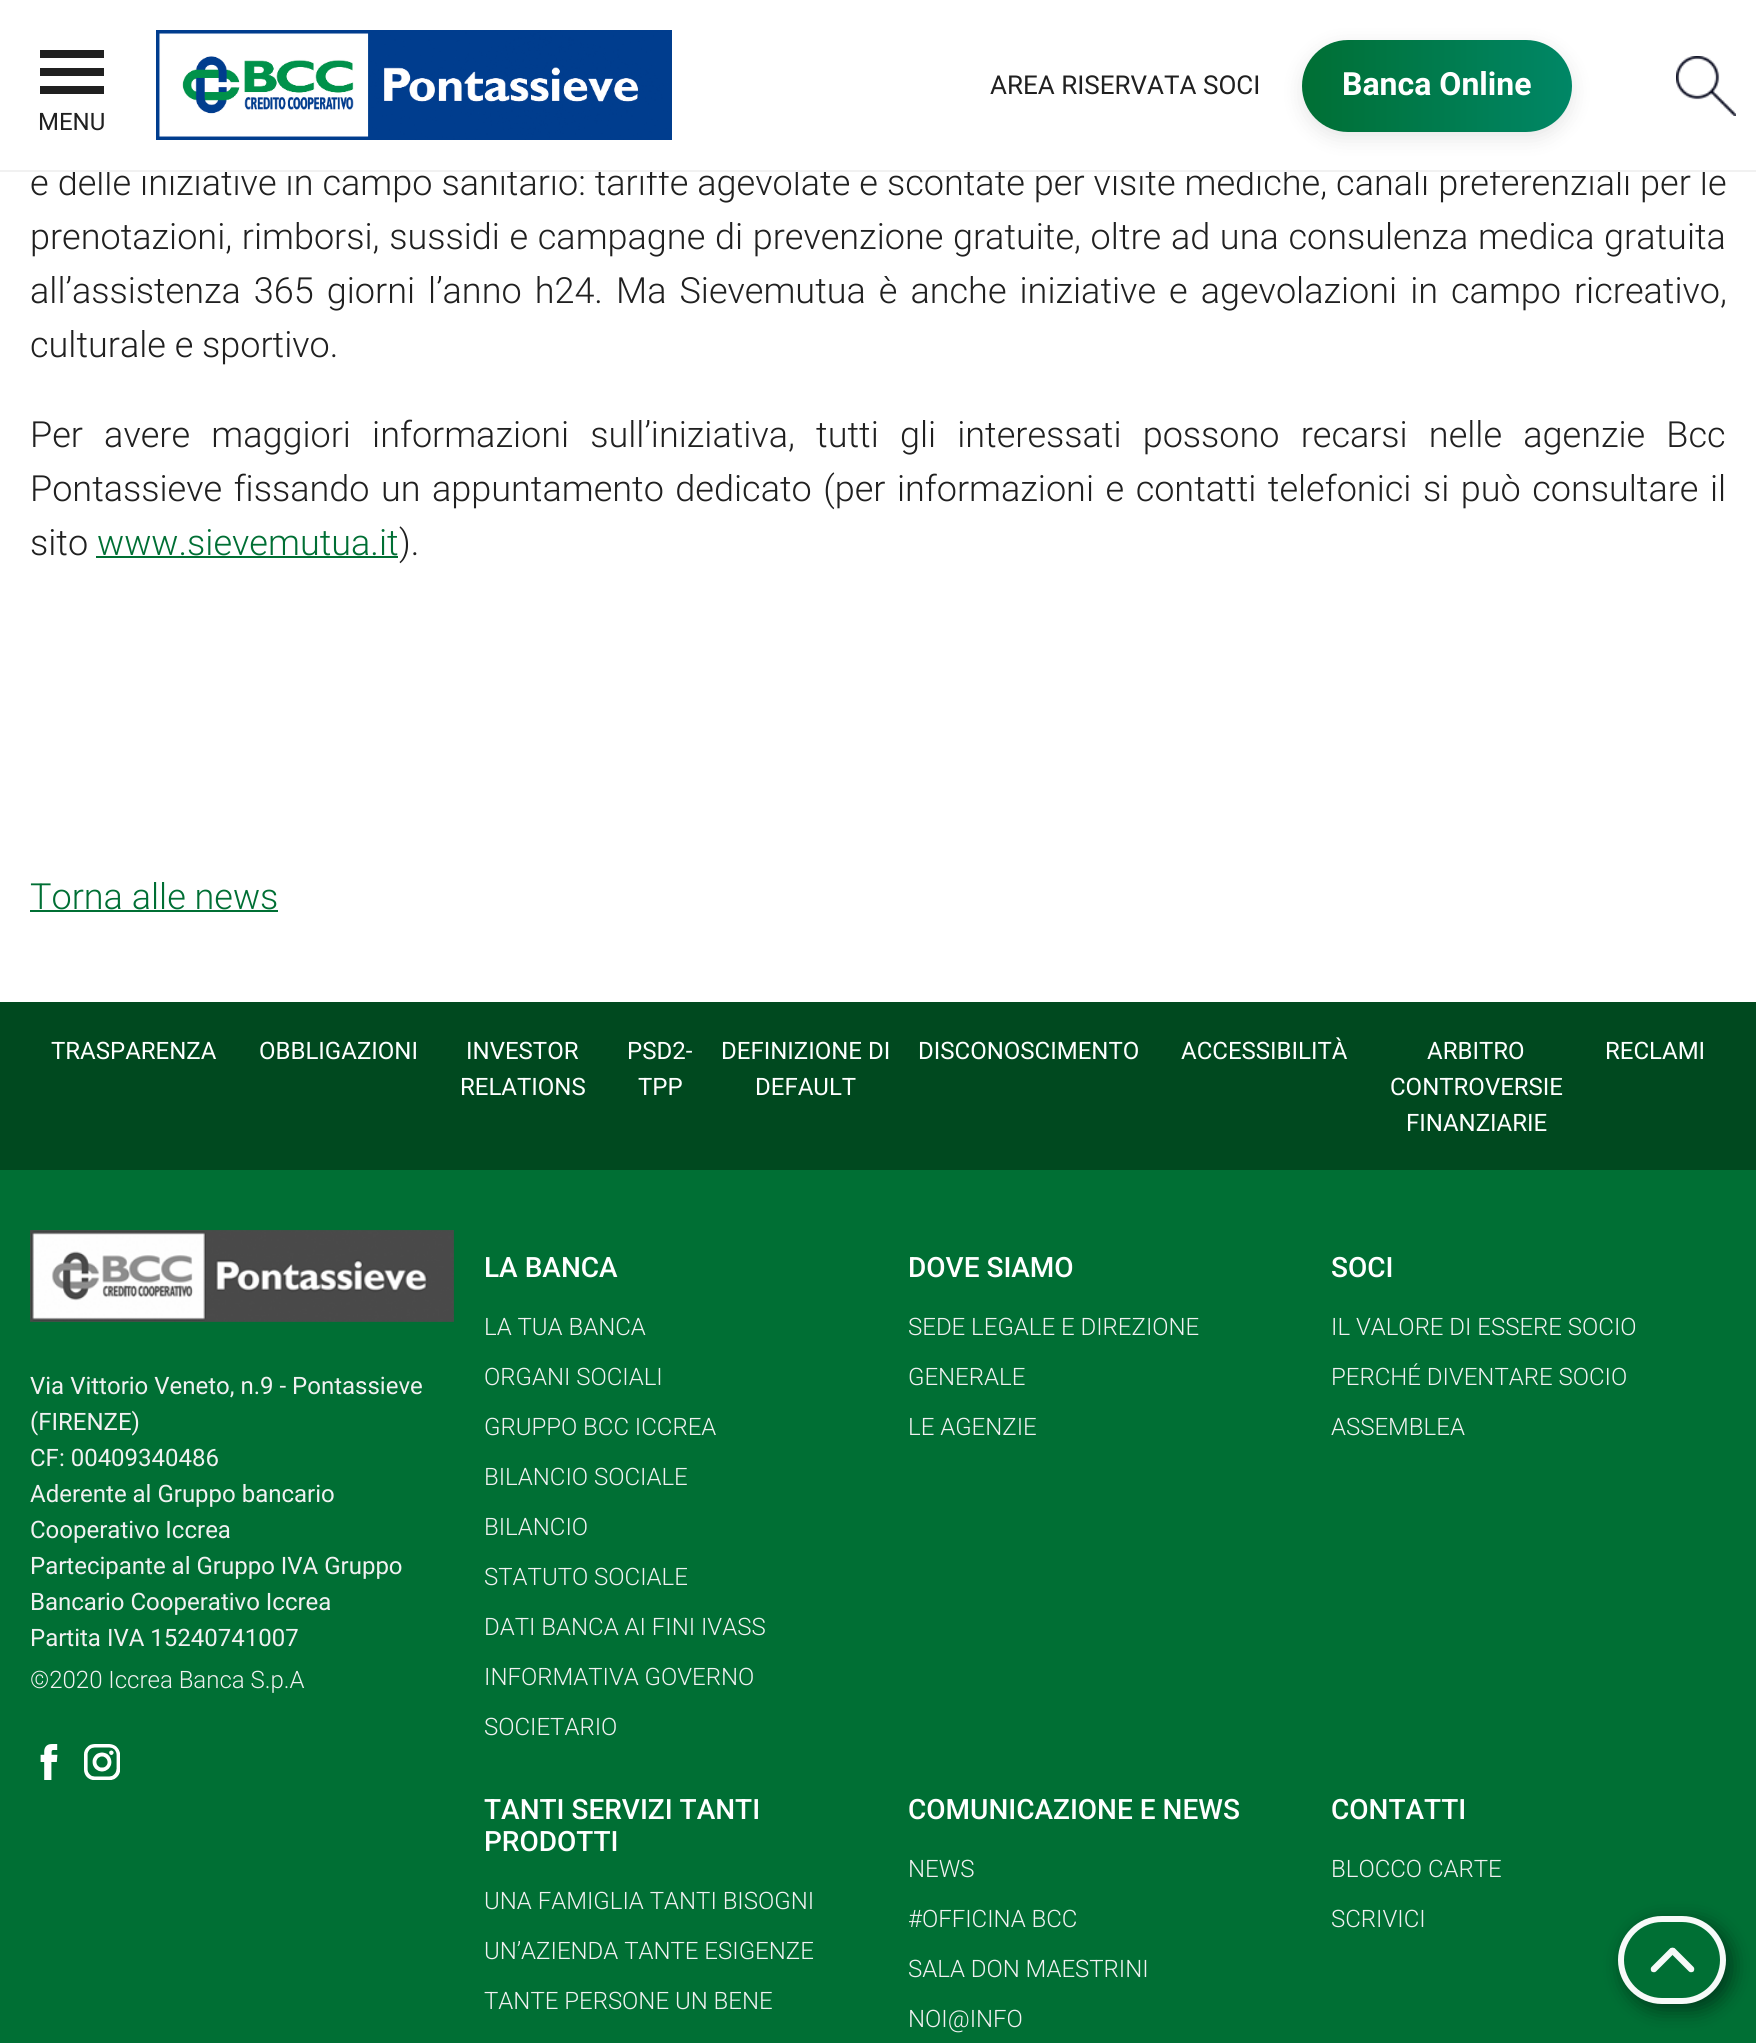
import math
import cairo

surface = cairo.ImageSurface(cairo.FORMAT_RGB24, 1756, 2043)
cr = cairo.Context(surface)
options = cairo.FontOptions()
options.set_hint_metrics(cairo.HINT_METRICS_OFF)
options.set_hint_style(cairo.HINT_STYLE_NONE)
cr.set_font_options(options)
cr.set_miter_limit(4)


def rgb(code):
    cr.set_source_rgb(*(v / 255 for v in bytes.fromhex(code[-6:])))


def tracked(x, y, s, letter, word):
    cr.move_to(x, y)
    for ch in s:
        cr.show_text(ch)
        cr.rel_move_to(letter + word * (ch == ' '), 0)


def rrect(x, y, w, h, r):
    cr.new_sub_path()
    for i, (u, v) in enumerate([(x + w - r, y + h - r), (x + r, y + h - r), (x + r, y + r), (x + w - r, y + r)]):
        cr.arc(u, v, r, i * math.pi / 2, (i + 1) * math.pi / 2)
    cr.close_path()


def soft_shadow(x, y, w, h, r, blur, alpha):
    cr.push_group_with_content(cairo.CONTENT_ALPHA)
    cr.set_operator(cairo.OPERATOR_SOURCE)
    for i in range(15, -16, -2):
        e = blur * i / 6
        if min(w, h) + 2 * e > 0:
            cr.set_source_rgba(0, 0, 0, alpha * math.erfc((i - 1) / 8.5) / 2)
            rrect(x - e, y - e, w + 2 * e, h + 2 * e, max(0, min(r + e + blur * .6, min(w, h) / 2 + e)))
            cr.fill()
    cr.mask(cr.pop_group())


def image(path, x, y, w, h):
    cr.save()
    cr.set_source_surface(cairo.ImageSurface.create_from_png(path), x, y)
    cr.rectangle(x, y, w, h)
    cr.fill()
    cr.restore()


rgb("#ffffff")
cr.paint()
image("img/1.png", 156, 30, 516, 110)
image("img/2.png", 1676, 56, 60, 60)
for x, y, w, h, color in [
    (40, 68, 64, 8, "#202020"),
    (40, 50, 64, 8, "#202020"),
    (40, 86, 64, 8, "#202020"),
    (96, 556, 302, 2, "#006f34"),
    (30, 910, 248, 2, "#006f34"),
    (0, 1002, 1756, 168, "#00491f"),
    (0, 1170, 1756, 873, "#006f34"),
]:
    rgb(color)
    cr.rectangle(x, y, w, h)
    cr.fill()
image("img/3.png", 30, 1230, 424, 92)
image("img/4.png", 40, 1744, 18, 36)
image("img/5.png", 84, 1744, 36, 36)
rgb("#000302")
soft_shadow(1624, 1922, 108, 88, 44, 10, 0.5)
rgb("#006f34")
rrect(1621, 1919, 102, 82, 41)
cr.fill_preserve()
rgb("#f7faf9")
cr.set_line_width(6)
cr.stroke()
cr.new_path()
cr.move_to(1674.5, 1948.5)
cr.curve_to(1675.5, 1950, 1675.5, 1952, 1674.5, 1953)
cr.line_to(1656, 1971.5)
cr.curve_to(1655, 1972.5, 1653, 1972.5, 1651.5, 1971.5)
cr.curve_to(1650.5, 1970, 1650.5, 1968, 1651.5, 1967)
cr.line_to(1670, 1948.5)
cr.curve_to(1671, 1947.5, 1673, 1947.5, 1674.5, 1948.5)
cr.close_path()
cr.fill()
cr.new_path()
cr.move_to(1670.5, 1948.5)
cr.curve_to(1672, 1947.5, 1674, 1947.5, 1675, 1948.5)
cr.line_to(1693.5, 1967)
cr.curve_to(1694.5, 1968, 1694.5, 1970, 1693.5, 1971.5)
cr.curve_to(1692, 1972.5, 1690, 1972.5, 1689, 1971.5)
cr.line_to(1670.5, 1953)
cr.curve_to(1669.5, 1952, 1669.5, 1950, 1670.5, 1948.5)
cr.close_path()
cr.fill()
cr.select_font_face("Roboto")
cr.set_font_size(26)
rgb("#202020")
cr.move_to(990, 94)
cr.show_text("AREA RISERVATA SOCI")
cr.set_font_size(24)
cr.move_to(38, 130)
cr.show_text("MENU")
cr.select_font_face("Roboto Light")
cr.set_font_size(36)
tracked(30, 195, "e delle iniziative in campo sanitario: tariffe agevolate e scontate per visite mediche, canali preferenziali per le", 0, 0.25)
rgb("#ffffff")
cr.rectangle(72, 167, 1633, 3)
cr.fill()
rgb("#000000")
soft_shadow(1302, 46, 270, 92, 46, 10, 0.1)
gradient = cairo.LinearGradient(1572, 86, 1302, 86)
gradient.add_color_stop_rgba(0, 0, 0.529, 0.4, 1)
gradient.add_color_stop_rgba(1, 0, 0.435, 0.204, 1)
cr.set_source(gradient)
rrect(1302, 40, 270, 92, 46)
cr.fill()
cr.select_font_face("Roboto", cairo.FONT_SLANT_NORMAL, cairo.FONT_WEIGHT_BOLD)
cr.set_font_size(32)
rgb("#ffffff")
cr.move_to(1342, 95)
cr.show_text("Banca Online")
rgb("#f1f1f1")
cr.rectangle(0, 170, 1756, 2)
cr.fill()
cr.select_font_face("Roboto Light")
cr.set_font_size(36)
rgb("#202020")
tracked(30, 249, "prenotazioni, rimborsi, sussidi e campagne di prevenzione gratuite, oltre ad una consulenza medica gratuita", 0, 0.9)
tracked(30, 303, "all’assistenza 365 giorni l’anno h24. Ma Sievemutua è anche iniziative e agevolazioni in campo ricreativo,", 0, 4.25)
cr.move_to(30, 357)
cr.show_text("culturale e sportivo.")
tracked(30, 447, "Per avere maggiori informazioni sull’iniziativa, tutti gli interessati possono recarsi nelle agenzie Bcc", 0, 12.4)
tracked(30, 501, "Pontassieve fissando un appuntamento dedicato (per informazioni e contatti telefonici si può consultare il", 0, 2.75)
cr.move_to(30, 555)
cr.show_text("sito")
rgb("#006f34")
cr.move_to(97, 555)
cr.show_text("www.sievemutua.it")
rgb("#202020")
cr.move_to(399, 555)
cr.show_text(").")
rgb("#006f34")
cr.move_to(30, 909)
cr.show_text("Torna alle news")
cr.select_font_face("Roboto")
cr.set_font_size(24)
rgb("#ffffff")
for x, y, s in [
    (51, 1059, "TRASPARENZA"),
    (259, 1059, "OBBLIGAZIONI"),
    (466, 1059, "INVESTOR"),
    (460, 1095, "RELATIONS"),
    (627, 1059, "PSD2-"),
    (638, 1095, "TPP"),
    (721, 1059, "DEFINIZIONE DI"),
    (755, 1095, "DEFAULT"),
    (918, 1059, "DISCONOSCIMENTO"),
    (1181, 1059, "ACCESSIBILITÀ"),
    (1427, 1059, "ARBITRO"),
    (1390, 1095, "CONTROVERSIE"),
    (1406, 1131, "FINANZIARIE"),
    (1605, 1059, "RECLAMI"),
]:
    cr.move_to(x, y)
    cr.show_text(s)
rgb("#f1f1f1")
for x, y, s in [
    (30, 1394, "Via Vittorio Veneto, n.9 - Pontassieve"),
    (30, 1430, "(FIRENZE)"),
    (30, 1466, "CF: 00409340486"),
    (30, 1502, "Aderente al Gruppo bancario"),
    (30, 1538, "Cooperativo Iccrea"),
    (30, 1574, "Partecipante al Gruppo IVA Gruppo"),
    (30, 1610, "Bancario Cooperativo Iccrea"),
    (30, 1646, "Partita IVA 15240741007"),
]:
    cr.move_to(x, y)
    cr.show_text(s)
cr.select_font_face("Roboto Light")
cr.move_to(30, 1688)
cr.show_text("©2020 Iccrea Banca S.p.A")
cr.select_font_face("Roboto Medium")
cr.set_font_size(28)
rgb("#ffffff")
cr.move_to(484, 1277)
cr.show_text("LA BANCA")
cr.select_font_face("Roboto Light")
cr.set_font_size(24)
rgb("#f1f1f1")
for x, y, s in [
    (484, 1335, "LA TUA BANCA"),
    (484, 1385, "ORGANI SOCIALI"),
    (484, 1435, "GRUPPO BCC ICCREA"),
    (484, 1485, "BILANCIO SOCIALE"),
    (484, 1535, "BILANCIO"),
    (484, 1585, "STATUTO SOCIALE"),
    (484, 1635, "DATI BANCA AI FINI IVASS"),
    (484, 1685, "INFORMATIVA GOVERNO"),
    (484, 1735, "SOCIETARIO"),
]:
    cr.move_to(x, y)
    cr.show_text(s)
cr.select_font_face("Roboto Medium")
cr.set_font_size(28)
rgb("#ffffff")
cr.move_to(908, 1277)
cr.show_text("DOVE SIAMO")
cr.select_font_face("Roboto Light")
cr.set_font_size(24)
rgb("#f1f1f1")
for x, y, s in [
    (908, 1335, "SEDE LEGALE E DIREZIONE"),
    (908, 1385, "GENERALE"),
    (908, 1435, "LE AGENZIE"),
]:
    cr.move_to(x, y)
    cr.show_text(s)
cr.select_font_face("Roboto Medium")
cr.set_font_size(28)
rgb("#ffffff")
cr.move_to(1331, 1277)
cr.show_text("SOCI")
cr.select_font_face("Roboto Light")
cr.set_font_size(24)
rgb("#f1f1f1")
for x, y, s in [
    (1331, 1335, "IL VALORE DI ESSERE SOCIO"),
    (1331, 1385, "PERCHÉ DIVENTARE SOCIO"),
    (1331, 1435, "ASSEMBLEA"),
]:
    cr.move_to(x, y)
    cr.show_text(s)
cr.select_font_face("Roboto Medium")
cr.set_font_size(28)
rgb("#ffffff")
cr.move_to(484, 1819)
cr.show_text("TANTI SERVIZI TANTI")
cr.move_to(484, 1851)
cr.show_text("PRODOTTI")
cr.select_font_face("Roboto Light")
cr.set_font_size(24)
rgb("#f1f1f1")
for x, y, s in [
    (484, 1909, "UNA FAMIGLIA TANTI BISOGNI"),
    (484, 1959, "UN’AZIENDA TANTE ESIGENZE"),
    (484, 2009, "TANTE PERSONE UN BENE"),
]:
    cr.move_to(x, y)
    cr.show_text(s)
cr.select_font_face("Roboto Medium")
cr.set_font_size(28)
rgb("#ffffff")
cr.move_to(908, 1819)
cr.show_text("COMUNICAZIONE E NEWS")
cr.select_font_face("Roboto Light")
cr.set_font_size(24)
rgb("#f1f1f1")
for x, y, s in [
    (908, 1877, "NEWS"),
    (908, 1927, "#OFFICINA BCC"),
    (908, 1977, "SALA DON MAESTRINI"),
    (908, 2027, "NOI@INFO"),
]:
    cr.move_to(x, y)
    cr.show_text(s)
cr.select_font_face("Roboto Medium")
cr.set_font_size(28)
rgb("#ffffff")
cr.move_to(1331, 1819)
cr.show_text("CONTATTI")
cr.select_font_face("Roboto Light")
cr.set_font_size(24)
rgb("#f1f1f1")
cr.move_to(1331, 1877)
cr.show_text("BLOCCO CARTE")
cr.move_to(1331, 1927)
cr.show_text("SCRIVICI")
surface.write_to_png("page.png")
